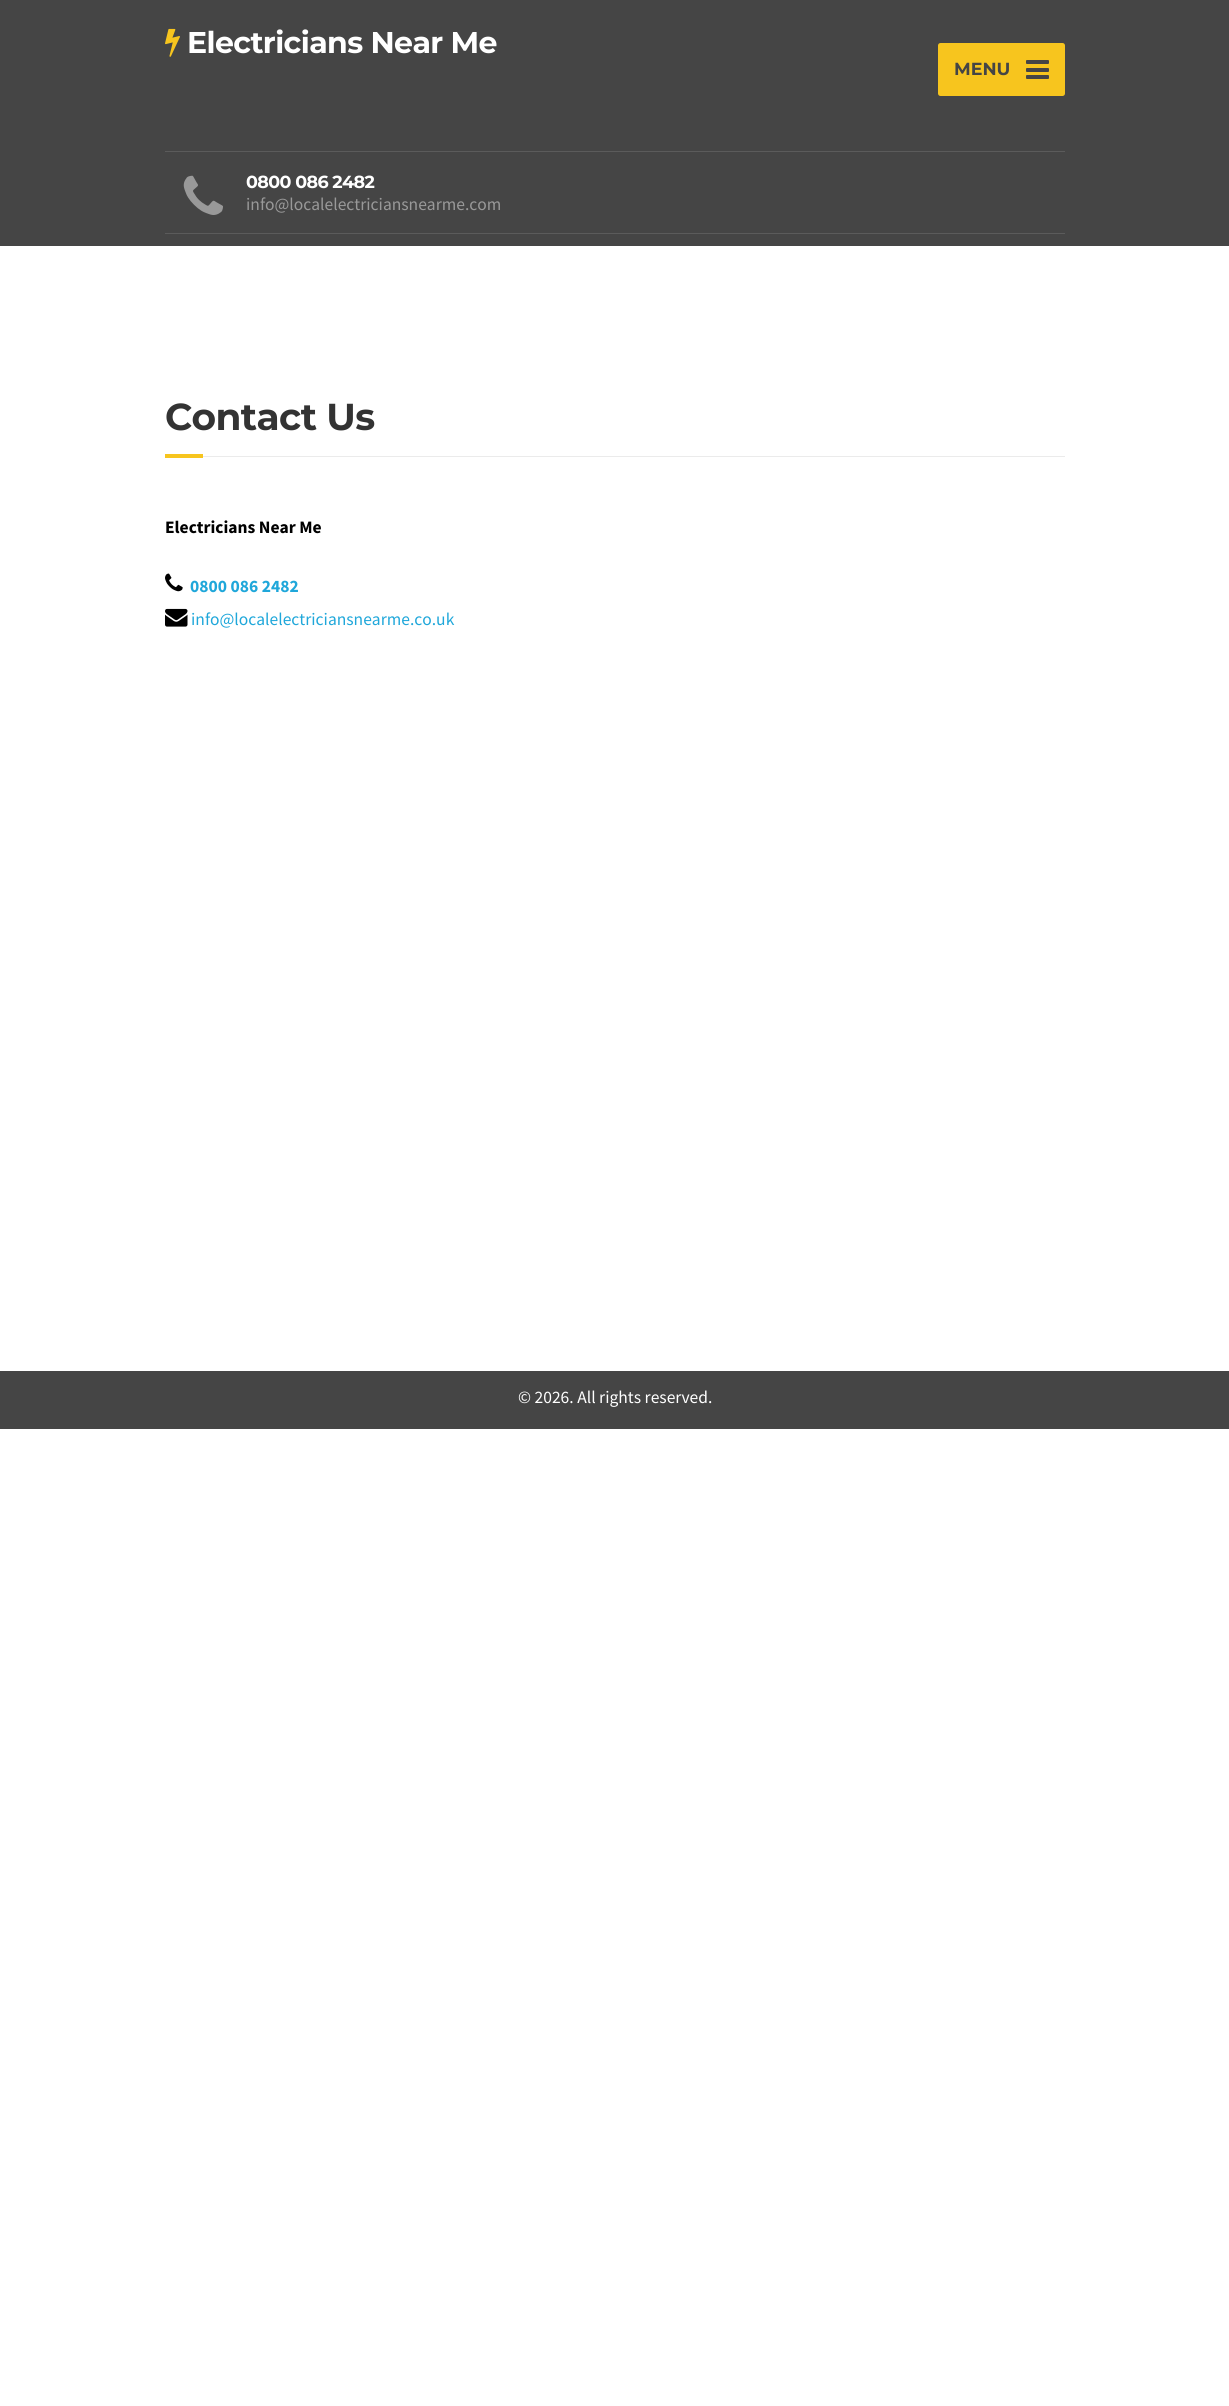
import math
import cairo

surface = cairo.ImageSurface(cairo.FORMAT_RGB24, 1229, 2406)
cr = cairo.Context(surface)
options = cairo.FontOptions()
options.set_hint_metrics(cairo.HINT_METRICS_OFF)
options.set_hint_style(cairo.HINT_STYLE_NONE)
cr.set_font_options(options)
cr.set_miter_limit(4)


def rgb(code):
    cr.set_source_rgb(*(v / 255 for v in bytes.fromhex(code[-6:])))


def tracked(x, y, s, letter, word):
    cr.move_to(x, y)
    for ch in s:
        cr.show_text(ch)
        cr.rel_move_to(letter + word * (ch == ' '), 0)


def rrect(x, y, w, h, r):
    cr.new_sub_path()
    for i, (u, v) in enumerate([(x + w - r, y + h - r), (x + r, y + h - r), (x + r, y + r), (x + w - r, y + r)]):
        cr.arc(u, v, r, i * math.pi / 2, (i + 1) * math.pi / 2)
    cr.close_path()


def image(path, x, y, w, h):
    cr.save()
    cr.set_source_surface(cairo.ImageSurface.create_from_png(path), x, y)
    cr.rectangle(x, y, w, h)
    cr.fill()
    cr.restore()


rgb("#ffffff")
cr.paint()
rgb("#454545")
cr.rectangle(0, 0, 1229, 246)
cr.fill()
image("img/1.png", 165, 28, 15, 29)
rgb("#f7c51e")
rrect(938, 43, 127, 53, 2.5)
cr.fill()
rgb("#454545")
rrect(1026, 60, 23, 4, 1)
cr.fill()
rrect(1026, 68, 23, 4, 1)
cr.fill()
rrect(1026, 75, 23, 4, 1)
cr.fill()
rgb("#5b5b5b")
cr.rectangle(165, 151, 900, 1)
cr.fill()
cr.rectangle(165, 233, 900, 1)
cr.fill()
image("img/2.png", 183, 175, 40, 40)
rgb("#ebebeb")
cr.rectangle(203, 456, 862, 1)
cr.fill()
rgb("#f7c51e")
cr.rectangle(165, 454, 38, 4)
cr.fill()
image("img/3.png", 165, 573, 18, 19)
image("img/4.png", 165, 608, 23, 19)
rgb("#454545")
cr.rectangle(0, 1371, 1229, 58)
cr.fill()
cr.select_font_face("Montserrat Thin")
cr.set_font_size(30)
rgb("#ffffff")
tracked(187, 53, "Electricians Near Me", -0.6, 0)
cr.set_font_size(17.5)
rgb("#454545")
cr.move_to(954, 75)
cr.show_text("MENU")
rgb("#ffffff")
tracked(246, 188, "0800 086 2482", -0.6, 0)
cr.select_font_face("Source Sans Pro")
rgb("#999999")
cr.move_to(246, 210)
cr.show_text("info@localelectriciansnearme.com")
cr.select_font_face("Montserrat Thin")
cr.set_font_size(37.5)
rgb("#333333")
tracked(165, 430, "Contact Us", -0.6, 0)
cr.select_font_face("Source Sans Pro", cairo.FONT_SLANT_NORMAL, cairo.FONT_WEIGHT_BOLD)
cr.set_font_size(17.5)
rgb("#000000")
cr.move_to(165, 533)
cr.show_text("Electricians Near Me")
rgb("#1fa7da")
cr.move_to(190, 592)
cr.show_text("0800 086 2482")
cr.select_font_face("Source Sans Pro")
cr.move_to(191, 625)
cr.show_text("info@localelectriciansnearme.co.uk")
rgb("#ffffff")
cr.move_to(518, 1403)
cr.show_text("© 2026. All rights reserved.")
surface.write_to_png("page.png")
